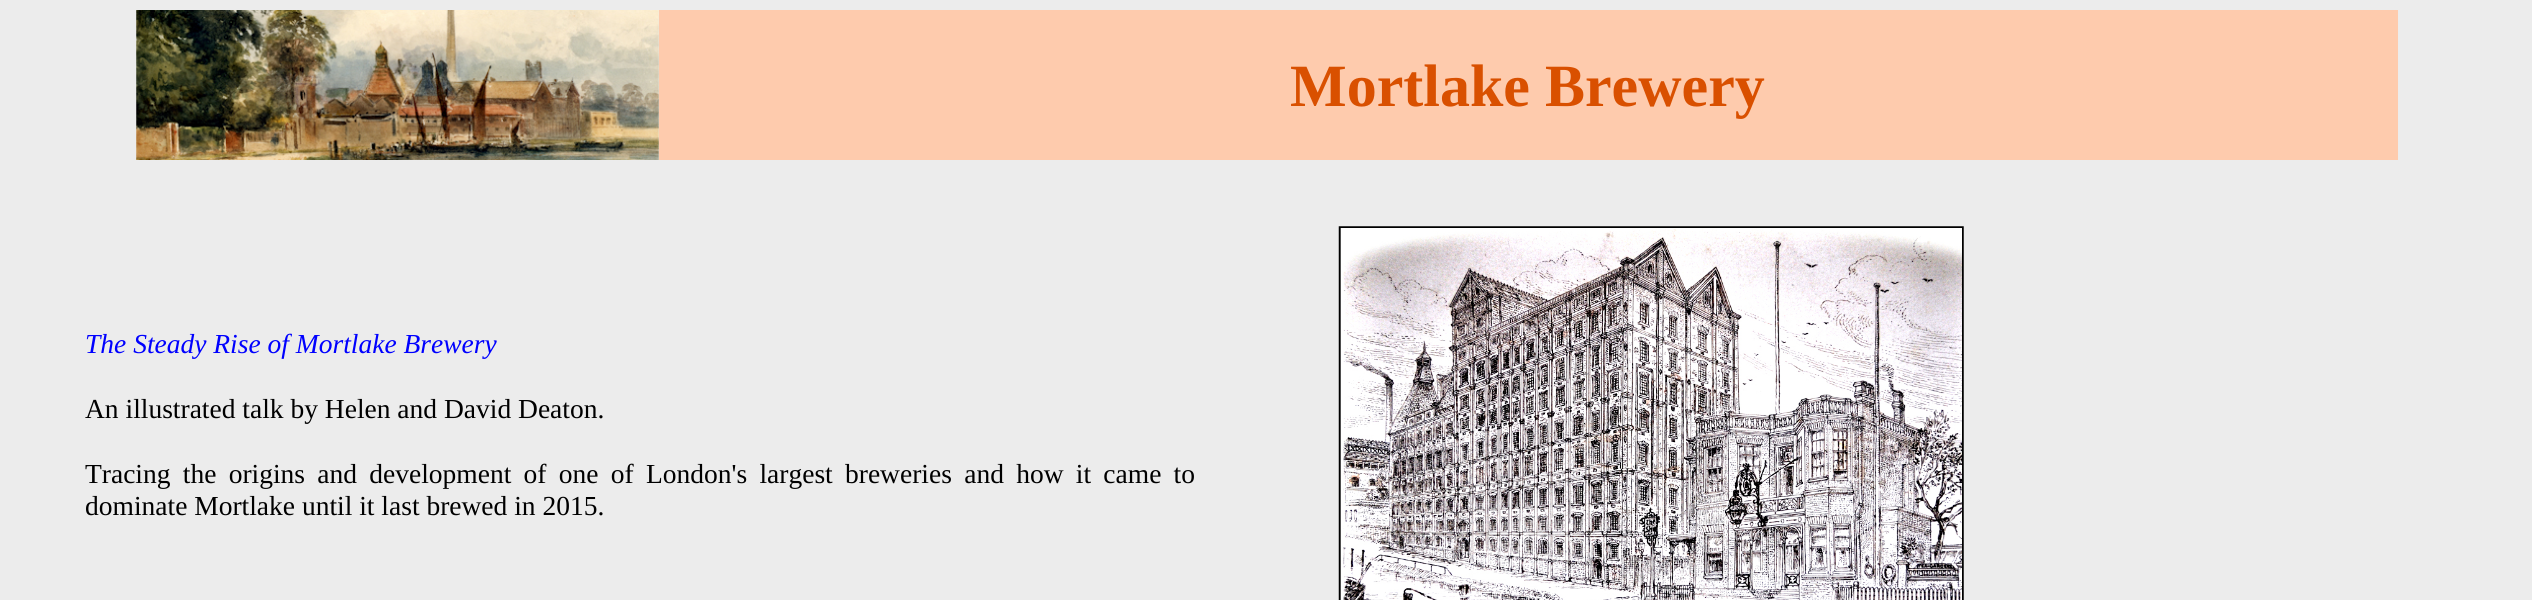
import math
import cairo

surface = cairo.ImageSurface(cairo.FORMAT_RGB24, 2532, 600)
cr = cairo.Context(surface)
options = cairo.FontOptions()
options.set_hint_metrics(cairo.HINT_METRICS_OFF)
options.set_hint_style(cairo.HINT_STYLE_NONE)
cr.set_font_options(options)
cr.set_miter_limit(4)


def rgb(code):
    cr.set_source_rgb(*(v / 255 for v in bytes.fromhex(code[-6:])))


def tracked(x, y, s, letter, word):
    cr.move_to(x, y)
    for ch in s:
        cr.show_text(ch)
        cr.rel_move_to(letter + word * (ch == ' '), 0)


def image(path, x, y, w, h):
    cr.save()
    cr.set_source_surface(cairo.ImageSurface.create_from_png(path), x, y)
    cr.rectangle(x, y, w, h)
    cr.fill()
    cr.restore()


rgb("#ececec")
cr.paint()
image("img/1.png", 136, 10, 523, 150)
rgb("#fecbad")
cr.rectangle(659, 10, 1739, 150)
cr.fill()
image("img/2.png", 1338, 226, 626, 374)
cr.select_font_face("Liberation Serif", cairo.FONT_SLANT_NORMAL, cairo.FONT_WEIGHT_BOLD)
cr.set_font_size(60)
rgb("#d95000")
cr.move_to(1290, 106)
cr.show_text("Mortlake Brewery")
cr.select_font_face("Liberation Serif", cairo.FONT_SLANT_ITALIC)
cr.set_font_size(27.5)
rgb("#0000ff")
cr.move_to(85, 353)
cr.show_text("The Steady Rise of Mortlake Brewery")
cr.select_font_face("Liberation Serif")
rgb("#000000")
cr.move_to(85, 418)
cr.show_text("An illustrated talk by Helen and David Deaton.")
tracked(85, 483, "Tracing the origins and development of one of London's largest breweries and how it came to", 0, 5.4)
cr.move_to(85, 515)
cr.show_text("dominate Mortlake until it last brewed in 2015.")
surface.write_to_png("page.png")
